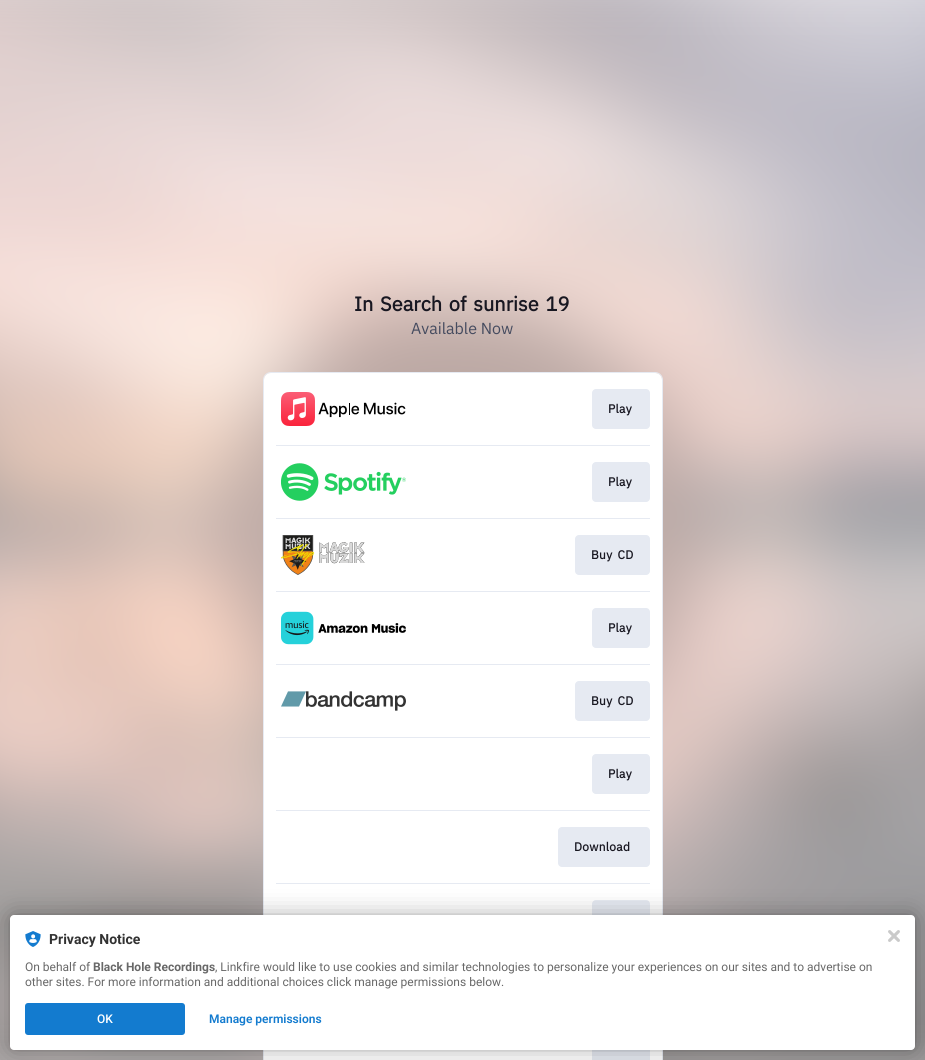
import math
import cairo

surface = cairo.ImageSurface(cairo.FORMAT_RGB24, 925, 1060)
cr = cairo.Context(surface)
options = cairo.FontOptions()
options.set_hint_metrics(cairo.HINT_METRICS_OFF)
options.set_hint_style(cairo.HINT_STYLE_NONE)
cr.set_font_options(options)
cr.set_miter_limit(4)


def rgb(code):
    cr.set_source_rgb(*(v / 255 for v in bytes.fromhex(code[-6:])))


def tracked(x, y, s, letter, word):
    cr.move_to(x, y)
    for ch in s:
        cr.show_text(ch)
        cr.rel_move_to(letter + word * (ch == ' '), 0)


def rrect(x, y, w, h, r):
    cr.new_sub_path()
    for i, (u, v) in enumerate([(x + w - r, y + h - r), (x + r, y + h - r), (x + r, y + r), (x + w - r, y + r)]):
        cr.arc(u, v, r, i * math.pi / 2, (i + 1) * math.pi / 2)
    cr.close_path()


def soft_shadow(x, y, w, h, r, blur, alpha):
    cr.push_group_with_content(cairo.CONTENT_ALPHA)
    cr.set_operator(cairo.OPERATOR_SOURCE)
    for i in range(15, -16, -2):
        e = blur * i / 6
        if min(w, h) + 2 * e > 0:
            cr.set_source_rgba(0, 0, 0, alpha * math.erfc((i - 1) / 8.5) / 2)
            rrect(x - e, y - e, w + 2 * e, h + 2 * e, max(0, min(r + e + blur * .6, min(w, h) / 2 + e)))
            cr.fill()
    cr.mask(cr.pop_group())


def image(path, x, y, w, h):
    cr.save()
    cr.set_source_surface(cairo.ImageSurface.create_from_png(path), x, y)
    cr.rectangle(x, y, w, h)
    cr.fill()
    cr.restore()


rgb("#ffffff")
cr.paint()
image("img/1.png", 0, 0, 925, 1060)
rrect(263.5, 372.5, 399, 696, 7.5)
rgb("#e6eaf2")
cr.set_line_width(1)
cr.stroke()
rgb("#ffffff")
rrect(264, 373, 398, 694, 7)
cr.fill()
image("img/2.png", 281, 392, 125, 34)
rgb("#e6eaf2")
rrect(592, 389, 58, 40, 4)
cr.fill()
cr.rectangle(276, 445, 374, 1)
cr.fill()
image("img/3.png", 281, 463, 125, 38)
rrect(592, 462, 58, 40, 4)
cr.fill()
cr.rectangle(276, 518, 374, 1)
cr.fill()
image("img/4.png", 281, 535, 84, 40)
rrect(575, 535, 75, 40, 4)
cr.fill()
cr.rectangle(276, 591, 374, 1)
cr.fill()
image("img/5.png", 281, 611, 125, 34)
rrect(592, 608, 58, 40, 4)
cr.fill()
cr.rectangle(276, 664, 374, 1)
cr.fill()
image("img/6.png", 281, 691, 125, 20)
rrect(575, 681, 75, 40, 4)
cr.fill()
cr.rectangle(276, 737, 374, 1)
cr.fill()
rrect(592, 754, 58, 40, 4)
cr.fill()
cr.rectangle(276, 810, 374, 1)
cr.fill()
rrect(558, 827, 92, 40, 4)
cr.fill()
cr.rectangle(276, 883, 374, 1)
cr.fill()
rrect(592, 900, 58, 40, 4)
cr.fill()
cr.rectangle(592, 1050, 58, 10)
cr.fill()
rgb("#000000")
soft_shadow(10, 915, 905, 135, 4, 2, 0.12)
soft_shadow(10, 915, 905, 135, 4, 12, 0.3)
rgb("#ffffff")
rrect(10, 915, 905, 135, 4)
cr.fill()
image("img/7.png", 25, 931, 16, 16)
rgb("#137bcf")
rrect(25, 1003, 160, 32, 3)
cr.fill()
image("img/8.png", 888, 930, 12, 12)
cr.select_font_face("IBM Plex Sans", cairo.FONT_SLANT_NORMAL, cairo.FONT_WEIGHT_BOLD)
cr.set_font_size(20)
rgb("#181721")
tracked(354, 311, "In Search of sunrise 19", 0, 2)
cr.select_font_face("IBM Plex Sans")
cr.set_font_size(16)
rgb("#454b5f")
cr.move_to(411, 334)
cr.show_text("Available Now")
cr.select_font_face("IBM Plex Sans", cairo.FONT_SLANT_NORMAL, cairo.FONT_WEIGHT_BOLD)
cr.set_font_size(12)
rgb("#181721")
tracked(608, 413, "Play", 0.25, 0)
tracked(608, 486, "Play", 0.25, 0)
tracked(591, 559, "Buy CD", 0.25, 2)
tracked(608, 632, "Play", 0.25, 0)
tracked(591, 705, "Buy CD", 0.25, 2)
tracked(608, 778, "Play", 0.25, 0)
tracked(574, 851, "Download", 0.25, 0)
cr.select_font_face("Roboto", cairo.FONT_SLANT_NORMAL, cairo.FONT_WEIGHT_BOLD)
cr.set_font_size(14)
rgb("#323232")
cr.move_to(49, 944)
cr.show_text("Privacy Notice")
cr.select_font_face("Roboto")
cr.set_font_size(12)
rgb("#686868")
cr.move_to(25, 971)
cr.show_text("On behalf of")
cr.select_font_face("Roboto", cairo.FONT_SLANT_NORMAL, cairo.FONT_WEIGHT_BOLD)
cr.move_to(93, 971)
cr.show_text("Black Hole Recordings")
cr.select_font_face("Roboto")
cr.move_to(215, 971)
cr.show_text(", Linkfire would like to use cookies and similar technologies to personalize your experiences on our sites and to advertise on")
cr.move_to(25, 986)
cr.show_text("other sites. For more information and additional choices click manage permissions below.")
cr.select_font_face("Roboto Medium")
rgb("#ffffff")
cr.move_to(97, 1023)
cr.show_text("OK")
cr.select_font_face("Roboto SemiBold")
rgb("#137bcf")
cr.move_to(209, 1023)
cr.show_text("Manage permissions")
surface.write_to_png("page.png")
